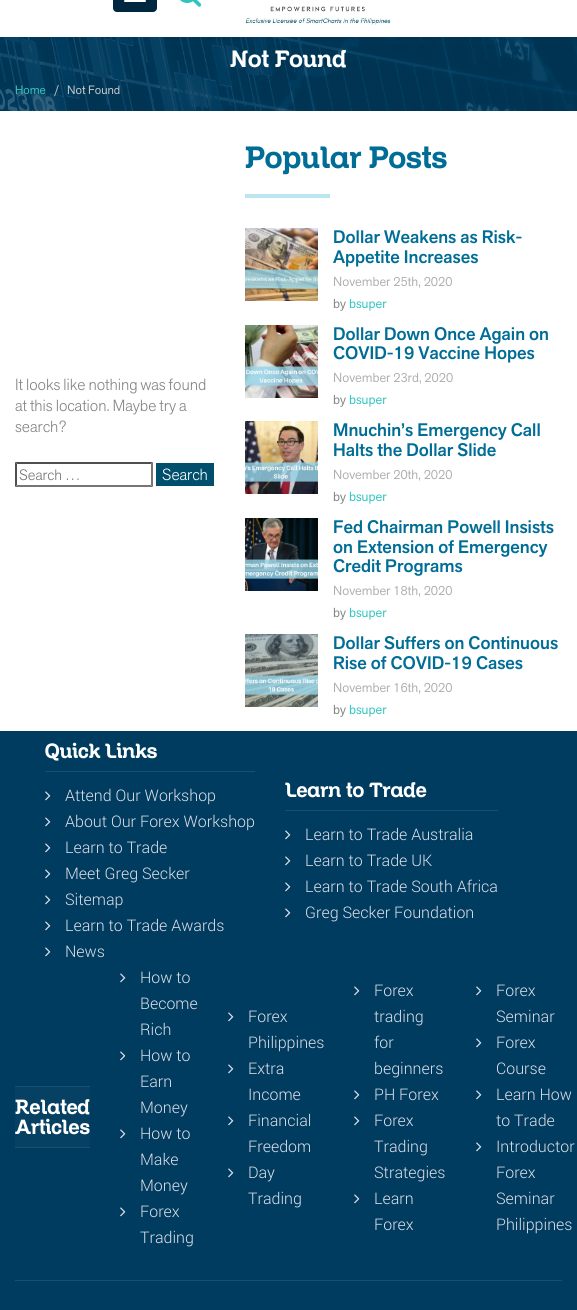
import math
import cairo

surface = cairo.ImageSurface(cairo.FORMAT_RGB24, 577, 1310)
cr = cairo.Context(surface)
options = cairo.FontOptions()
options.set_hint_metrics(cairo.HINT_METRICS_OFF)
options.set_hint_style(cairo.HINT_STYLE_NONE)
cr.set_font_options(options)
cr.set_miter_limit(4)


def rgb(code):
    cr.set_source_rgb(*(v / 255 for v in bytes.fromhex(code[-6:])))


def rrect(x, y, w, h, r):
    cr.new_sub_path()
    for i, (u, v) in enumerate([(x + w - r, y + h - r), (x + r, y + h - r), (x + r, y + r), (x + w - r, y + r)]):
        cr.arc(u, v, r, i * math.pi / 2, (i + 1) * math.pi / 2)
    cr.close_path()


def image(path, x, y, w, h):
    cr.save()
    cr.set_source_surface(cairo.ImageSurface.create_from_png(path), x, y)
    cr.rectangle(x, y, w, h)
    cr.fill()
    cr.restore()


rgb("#ffffff")
cr.paint()
rgb("#002740")
rrect(113, -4, 44, 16, 4)
cr.fill()
rgb("#ffffff")
rrect(124, 0, 22, 2, 1)
cr.fill()
image("img/1.png", 180, 0, 22, 7)
image("img/2.png", 245, 6, 146, 19)
image("img/3.png", 0, 37, 577, 74)
rgb("#4f4f4f")
cr.new_path()
cr.move_to(15, 462)
cr.line_to(153, 462)
cr.line_to(151, 464)
cr.line_to(17, 464)
cr.close_path()
cr.fill()
rgb("#767676")
cr.new_path()
cr.move_to(153, 462)
cr.line_to(153, 487)
cr.line_to(151, 485)
cr.line_to(151, 464)
cr.close_path()
cr.fill()
cr.new_path()
cr.move_to(153, 487)
cr.line_to(15, 487)
cr.line_to(17, 485)
cr.line_to(151, 485)
cr.close_path()
cr.fill()
rgb("#4f4f4f")
cr.new_path()
cr.move_to(15, 487)
cr.line_to(15, 462)
cr.line_to(17, 464)
cr.line_to(17, 485)
cr.close_path()
cr.fill()
rgb("#004f6d")
cr.rectangle(156, 463, 58, 23)
cr.fill()
rgb("#bae6f2")
cr.rectangle(245, 194, 85, 4)
cr.fill()
image("img/4.png", 245, 228, 73, 73)
image("img/5.png", 245, 325, 73, 73)
image("img/6.png", 245, 421, 73, 73)
image("img/7.png", 245, 518, 73, 73)
image("img/8.png", 245, 634, 73, 73)
rgb("#003c5f")
cr.rectangle(0, 731, 577, 579)
cr.fill()
rgb("#1a506f")
cr.rectangle(45, 771, 210, 1)
cr.fill()
image("img/9.png", 45, 791, 6, 10)
image("img/9.png", 45, 817, 6, 10)
image("img/9.png", 45, 843, 6, 10)
image("img/9.png", 45, 869, 6, 10)
image("img/9.png", 45, 895, 6, 10)
image("img/9.png", 45, 921, 6, 10)
image("img/9.png", 45, 947, 6, 10)
cr.rectangle(285, 810, 213, 1)
cr.fill()
image("img/9.png", 285, 830, 6, 10)
image("img/9.png", 285, 856, 6, 10)
image("img/9.png", 285, 882, 6, 10)
image("img/9.png", 285, 908, 6, 10)
for x, y, w, h, color in [
    (15, 1087, 75, 60, "#064063"),
    (15, 1086, 75, 1, "#1a506f"),
    (15, 1147, 75, 1, "#1a506f"),
]:
    rgb(color)
    cr.rectangle(x, y, w, h)
    cr.fill()
image("img/9.png", 120, 973, 6, 10)
image("img/9.png", 120, 1051, 6, 10)
image("img/9.png", 120, 1129, 6, 10)
image("img/9.png", 120, 1207, 6, 10)
image("img/9.png", 228, 1012, 6, 10)
image("img/9.png", 228, 1064, 6, 10)
image("img/9.png", 228, 1116, 6, 10)
image("img/9.png", 228, 1168, 6, 10)
image("img/9.png", 354, 986, 6, 10)
image("img/9.png", 354, 1090, 6, 10)
image("img/9.png", 354, 1116, 6, 10)
image("img/9.png", 354, 1194, 6, 10)
image("img/9.png", 476, 986, 6, 10)
image("img/9.png", 476, 1038, 6, 10)
image("img/9.png", 476, 1090, 6, 10)
image("img/9.png", 476, 1142, 6, 10)
cr.rectangle(15, 1280, 547, 1)
cr.fill()
cr.select_font_face("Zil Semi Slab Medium")
cr.set_font_size(23)
rgb("#ffffff")
cr.move_to(230, 67)
cr.show_text("Not Found")
cr.select_font_face("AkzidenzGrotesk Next")
cr.set_font_size(12)
rgb("#39c5bf")
cr.move_to(15, 94)
cr.show_text("Home")
rgb("#cccccc")
cr.move_to(54, 94)
cr.show_text("/")
cr.move_to(67, 94)
cr.show_text("Not Found")
cr.select_font_face("AkzidenzGrotesk Next Light")
cr.set_font_size(16)
rgb("#838383")
for x, y, s in [
    (15, 390, "It looks like nothing was found"),
    (15, 411, "at this location. Maybe try a"),
    (15, 432, "search?"),
]:
    cr.move_to(x, y)
    cr.show_text(s)
cr.set_font_size(15)
rgb("#757575")
cr.move_to(19, 480)
cr.show_text("Search …")
cr.set_font_size(16)
rgb("#ffffff")
cr.move_to(162, 480)
cr.show_text("Search")
cr.select_font_face("Zil Semi Slab Medium")
cr.set_font_size(30)
rgb("#006d96")
cr.move_to(245, 168)
cr.show_text("Popular Posts")
cr.select_font_face("AkzidenzGrotesk Next Medium")
cr.set_font_size(18)
cr.move_to(333, 243)
cr.show_text("Dollar Weakens as Risk-")
cr.move_to(333, 263)
cr.show_text("Appetite Increases")
cr.select_font_face("AkzidenzGrotesk Next")
cr.set_font_size(13)
rgb("#afafaf")
cr.move_to(333, 286)
cr.show_text("November 25th, 2020")
rgb("#838383")
cr.move_to(333, 308)
cr.show_text("by")
rgb("#2dc5c1")
cr.move_to(349, 308)
cr.show_text("bsuper")
cr.select_font_face("AkzidenzGrotesk Next Medium")
cr.set_font_size(18)
rgb("#006d96")
cr.move_to(333, 340)
cr.show_text("Dollar Down Once Again on")
cr.move_to(333, 359)
cr.show_text("COVID-19 Vaccine Hopes")
cr.select_font_face("AkzidenzGrotesk Next")
cr.set_font_size(13)
rgb("#afafaf")
cr.move_to(333, 382)
cr.show_text("November 23rd, 2020")
rgb("#838383")
cr.move_to(333, 404)
cr.show_text("by")
rgb("#2dc5c1")
cr.move_to(349, 404)
cr.show_text("bsuper")
cr.select_font_face("AkzidenzGrotesk Next Medium")
cr.set_font_size(18)
rgb("#006d96")
cr.move_to(333, 436)
cr.show_text("Mnuchin’s Emergency Call")
cr.move_to(333, 456)
cr.show_text("Halts the Dollar Slide")
cr.select_font_face("AkzidenzGrotesk Next")
cr.set_font_size(13)
rgb("#afafaf")
cr.move_to(333, 479)
cr.show_text("November 20th, 2020")
rgb("#838383")
cr.move_to(333, 501)
cr.show_text("by")
rgb("#2dc5c1")
cr.move_to(349, 501)
cr.show_text("bsuper")
cr.select_font_face("AkzidenzGrotesk Next Medium")
cr.set_font_size(18)
rgb("#006d96")
for x, y, s in [
    (333, 533, "Fed Chairman Powell Insists"),
    (333, 553, "on Extension of Emergency"),
    (333, 572, "Credit Programs"),
]:
    cr.move_to(x, y)
    cr.show_text(s)
cr.select_font_face("AkzidenzGrotesk Next")
cr.set_font_size(13)
rgb("#afafaf")
cr.move_to(333, 595)
cr.show_text("November 18th, 2020")
rgb("#838383")
cr.move_to(333, 617)
cr.show_text("by")
rgb("#2dc5c1")
cr.move_to(349, 617)
cr.show_text("bsuper")
cr.select_font_face("AkzidenzGrotesk Next Medium")
cr.set_font_size(18)
rgb("#006d96")
cr.move_to(333, 649)
cr.show_text("Dollar Suffers on Continuous")
cr.move_to(333, 669)
cr.show_text("Rise of COVID-19 Cases")
cr.select_font_face("AkzidenzGrotesk Next")
cr.set_font_size(13)
rgb("#afafaf")
cr.move_to(333, 692)
cr.show_text("November 16th, 2020")
rgb("#838383")
cr.move_to(333, 714)
cr.show_text("by")
rgb("#2dc5c1")
cr.move_to(349, 714)
cr.show_text("bsuper")
cr.select_font_face("Zil Semi Slab Medium")
cr.set_font_size(20)
rgb("#ffffff")
cr.move_to(45, 758)
cr.show_text("Quick Links")
cr.select_font_face("Roboto Light")
cr.set_font_size(16)
rgb("#e0e0e9")
for x, y, s in [
    (65, 801, "Attend Our Workshop"),
    (65, 827, "About Our Forex Workshop"),
    (65, 853, "Learn to Trade"),
    (65, 879, "Meet Greg Secker"),
    (65, 905, "Sitemap"),
    (65, 931, "Learn to Trade Awards"),
    (65, 957, "News"),
]:
    cr.move_to(x, y)
    cr.show_text(s)
cr.select_font_face("Zil Semi Slab Medium")
cr.set_font_size(20)
rgb("#ffffff")
cr.move_to(285, 797)
cr.show_text("Learn to Trade")
cr.select_font_face("Roboto Light")
cr.set_font_size(16)
rgb("#e0e0e9")
for x, y, s in [
    (305, 840, "Learn to Trade Australia"),
    (305, 866, "Learn to Trade UK"),
    (305, 892, "Learn to Trade South Africa"),
    (305, 918, "Greg Secker Foundation"),
]:
    cr.move_to(x, y)
    cr.show_text(s)
cr.select_font_face("Zil Semi Slab Medium")
cr.set_font_size(20)
rgb("#ffffff")
cr.move_to(15, 1114)
cr.show_text("Related")
cr.move_to(15, 1134)
cr.show_text("Articles")
cr.select_font_face("Roboto Light")
cr.set_font_size(16)
rgb("#e0e0e9")
for x, y, s in [
    (140, 983, "How to"),
    (140, 1009, "Become"),
    (140, 1035, "Rich"),
    (140, 1061, "How to"),
    (140, 1087, "Earn"),
    (140, 1113, "Money"),
    (140, 1139, "How to"),
    (140, 1165, "Make"),
    (140, 1191, "Money"),
    (140, 1217, "Forex"),
    (140, 1243, "Trading"),
    (248, 1022, "Forex"),
    (248, 1048, "Philippines"),
    (248, 1074, "Extra"),
    (248, 1100, "Income"),
    (248, 1126, "Financial"),
    (248, 1152, "Freedom"),
    (248, 1178, "Day"),
    (248, 1204, "Trading"),
    (374, 996, "Forex"),
    (374, 1022, "trading"),
    (374, 1048, "for"),
    (374, 1074, "beginners"),
    (374, 1100, "PH Forex"),
    (374, 1126, "Forex"),
    (374, 1152, "Trading"),
    (374, 1178, "Strategies"),
    (374, 1204, "Learn"),
    (374, 1230, "Forex"),
    (496, 996, "Forex"),
    (496, 1022, "Seminar"),
    (496, 1048, "Forex"),
    (496, 1074, "Course"),
    (496, 1100, "Learn How"),
    (496, 1126, "to Trade"),
    (496, 1152, "Introductor"),
    (496, 1178, "Forex"),
    (496, 1204, "Seminar"),
    (496, 1230, "Philippines"),
]:
    cr.move_to(x, y)
    cr.show_text(s)
surface.write_to_png("page.png")
